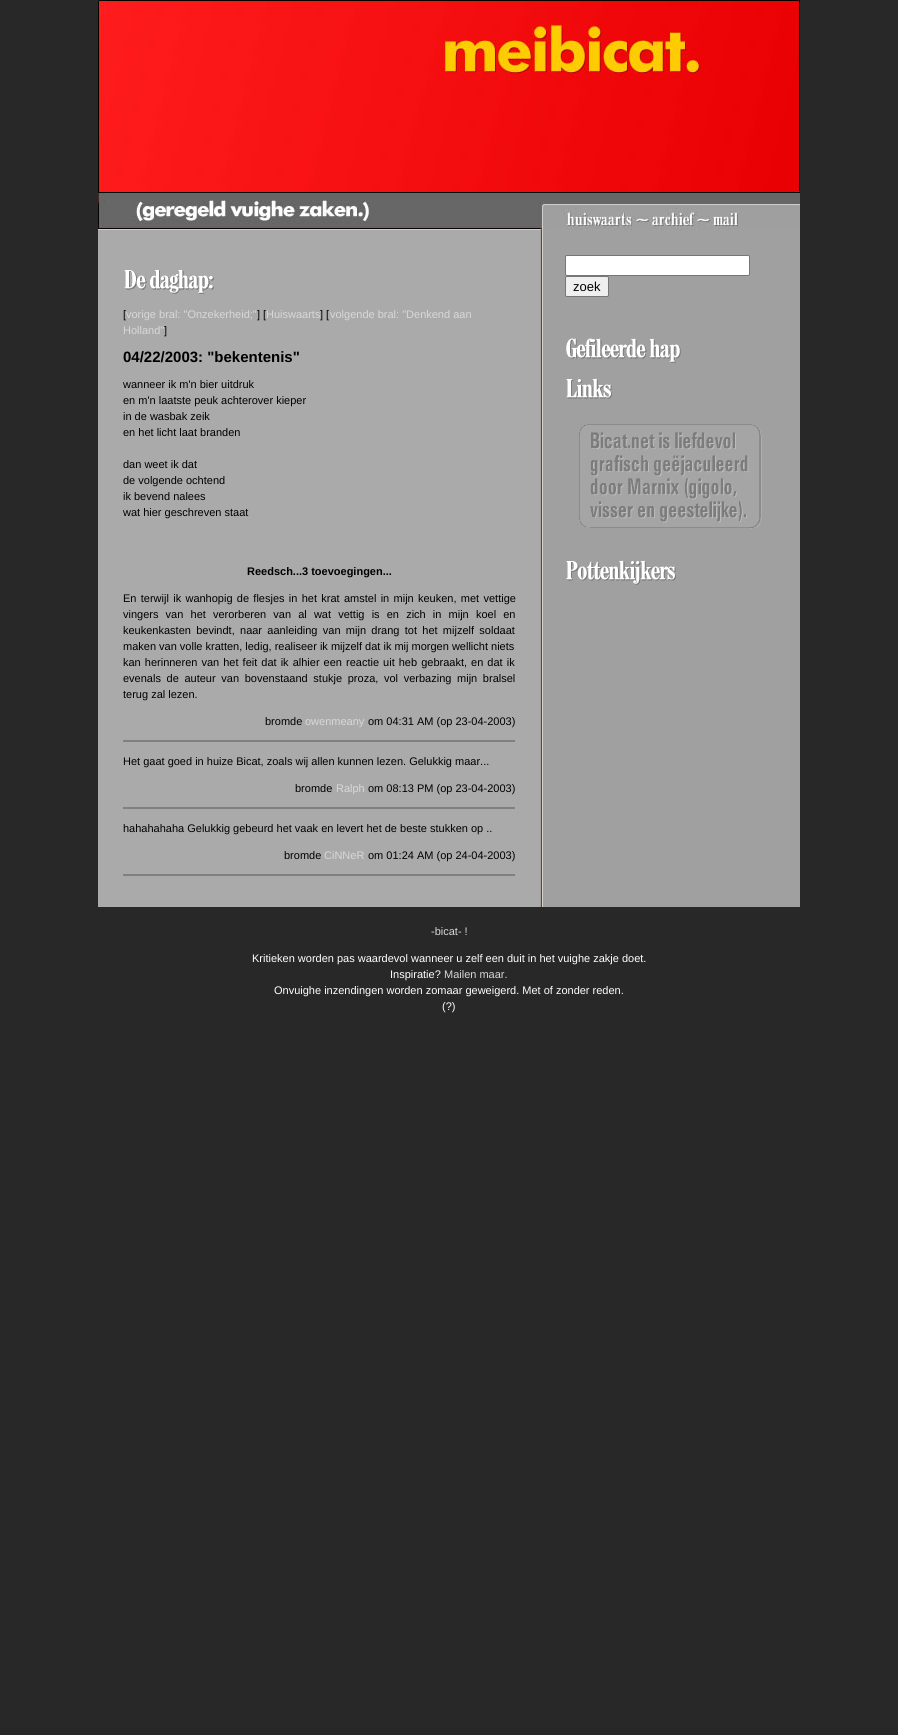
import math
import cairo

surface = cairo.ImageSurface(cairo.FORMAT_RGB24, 898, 1735)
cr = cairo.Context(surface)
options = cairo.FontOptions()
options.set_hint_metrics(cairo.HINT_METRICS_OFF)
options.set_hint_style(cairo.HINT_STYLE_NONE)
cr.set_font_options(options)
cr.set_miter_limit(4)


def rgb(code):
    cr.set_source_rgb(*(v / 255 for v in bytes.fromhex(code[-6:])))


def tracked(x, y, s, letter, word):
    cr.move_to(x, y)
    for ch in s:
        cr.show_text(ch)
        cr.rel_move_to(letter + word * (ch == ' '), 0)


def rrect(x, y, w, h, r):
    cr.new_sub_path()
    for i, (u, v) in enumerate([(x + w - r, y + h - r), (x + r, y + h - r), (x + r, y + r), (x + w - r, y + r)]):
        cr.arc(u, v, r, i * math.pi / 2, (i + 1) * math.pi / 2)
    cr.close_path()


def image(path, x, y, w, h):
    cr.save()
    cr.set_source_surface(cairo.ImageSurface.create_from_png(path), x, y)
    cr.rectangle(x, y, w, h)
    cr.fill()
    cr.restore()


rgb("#282828")
cr.paint()
image("img/1.png", 98, 0, 702, 230)
image("img/2.png", 540, 230, 260, 677)
rgb("#ffffff")
rrect(565.5, 255.5, 184, 20, 1.5)
cr.fill_preserve()
rgb("#767676")
cr.set_line_width(1)
cr.stroke()
rgb("#efefef")
rrect(565.5, 276.5, 43, 20, 1.5)
cr.fill_preserve()
rgb("#767676")
cr.stroke()
image("img/3.png", 566, 338, 115, 25)
image("img/4.png", 566, 378, 46, 21)
image("img/5.png", 579, 424, 183, 105)
image("img/6.png", 566, 560, 110, 25)
rgb("#aaaaaa")
cr.rectangle(98, 230, 442, 677)
cr.fill()
image("img/7.png", 124, 269, 90, 25)
for x, y, w, h, color in [
    (123, 740, 392, 2, "#808080"),
    (123, 807, 392, 2, "#808080"),
    (123, 874, 392, 2, "#808080"),
]:
    rgb(color)
    cr.rectangle(x, y, w, h)
    cr.fill()
cr.select_font_face("Liberation Sans")
cr.set_font_size(13)
rgb("#000000")
cr.move_to(573, 291)
cr.show_text("zoek")
cr.set_font_size(11)
cr.move_to(123, 318)
cr.show_text("[")
rgb("#d8d8d8")
cr.move_to(126, 318)
cr.show_text("vorige bral: \"Onzekerheid;\"")
rgb("#000000")
cr.move_to(257, 318)
cr.show_text("] [")
rgb("#d8d8d8")
cr.move_to(266, 318)
cr.show_text("Huiswaarts")
rgb("#000000")
cr.move_to(320, 318)
cr.show_text("] [")
rgb("#d8d8d8")
cr.move_to(330, 318)
cr.show_text("volgende bral: \"Denkend aan")
cr.move_to(123, 334)
cr.show_text("Holland\"")
rgb("#000000")
cr.move_to(164, 334)
cr.show_text("]")
cr.select_font_face("Liberation Sans", cairo.FONT_SLANT_NORMAL, cairo.FONT_WEIGHT_BOLD)
cr.set_font_size(15)
cr.move_to(123, 362)
cr.show_text("04/22/2003: \"bekentenis\"")
cr.select_font_face("Liberation Sans")
cr.set_font_size(11)
for x, y, s in [
    (123, 388, "wanneer ik m'n bier uitdruk"),
    (123, 404, "en m'n laatste peuk achterover kieper"),
    (123, 420, "in de wasbak zeik"),
    (123, 436, "en het licht laat branden"),
    (123, 468, "dan weet ik dat"),
    (123, 484, "de volgende ochtend"),
    (123, 500, "ik bevend nalees"),
    (123, 516, "wat hier geschreven staat"),
]:
    cr.move_to(x, y)
    cr.show_text(s)
cr.select_font_face("Liberation Sans", cairo.FONT_SLANT_NORMAL, cairo.FONT_WEIGHT_BOLD)
cr.move_to(247, 575)
cr.show_text("Reedsch...3 toevoegingen...")
cr.select_font_face("Liberation Sans")
tracked(123, 602, "En terwijl ik wanhopig de flesjes in het krat amstel in mijn keuken, met vettige", 0, 1.25)
tracked(123, 618, "vingers van het verorberen van al wat vettig is en zich in mijn koel en", 0, 4.1)
tracked(123, 634, "keukenkasten bevindt, naar aanleiding van mijn drang tot het mijzelf soldaat", 0, 2.25)
cr.move_to(123, 650)
cr.show_text("maken van volle kratten, ledig, realiseer ik mijzelf dat ik mij morgen wellicht niets")
tracked(123, 666, "kan herinneren van het feit dat ik alhier een reactie uit heb gebraakt, en dat ik", 0, 1)
tracked(123, 682, "evenals de auteur van bovenstaand stukje proza, vol verbazing mijn bralsel", 0, 2.6)
cr.move_to(123, 698)
cr.show_text("terug zal lezen.")
cr.move_to(265, 725)
cr.show_text("bromde")
rgb("#d8d8d8")
cr.move_to(305, 725)
cr.show_text("owenmeany")
rgb("#000000")
for x, y, s in [
    (368, 725, "om 04:31 AM (op 23-04-2003)"),
    (123, 765, "Het gaat goed in huize Bicat, zoals wij allen kunnen lezen. Gelukkig maar..."),
    (295, 792, "bromde"),
]:
    cr.move_to(x, y)
    cr.show_text(s)
rgb("#d8d8d8")
cr.move_to(336, 792)
cr.show_text("Ralph")
rgb("#000000")
for x, y, s in [
    (368, 792, "om 08:13 PM (op 23-04-2003)"),
    (123, 832, "hahahahaha Gelukkig gebeurd het vaak en levert het de beste stukken op .."),
    (284, 859, "bromde"),
]:
    cr.move_to(x, y)
    cr.show_text(s)
rgb("#d8d8d8")
cr.move_to(324, 859)
cr.show_text("CiNNeR")
rgb("#000000")
cr.move_to(368, 859)
cr.show_text("om 01:24 AM (op 24-04-2003)")
rgb("#d8d8d8")
cr.move_to(431, 935)
cr.show_text("-bicat- !")
rgb("#ffffff")
cr.move_to(252, 962)
cr.show_text("Kritieken worden pas waardevol wanneer u zelf een duit in het vuighe zakje doet.")
cr.move_to(390, 978)
cr.show_text("Inspiratie?")
rgb("#d8d8d8")
cr.move_to(444, 978)
cr.show_text("Mailen maar.")
rgb("#ffffff")
cr.move_to(274, 994)
cr.show_text("Onvuighe inzendingen worden zomaar geweigerd. Met of zonder reden.")
cr.move_to(442, 1010)
cr.show_text("(?)")
surface.write_to_png("page.png")
